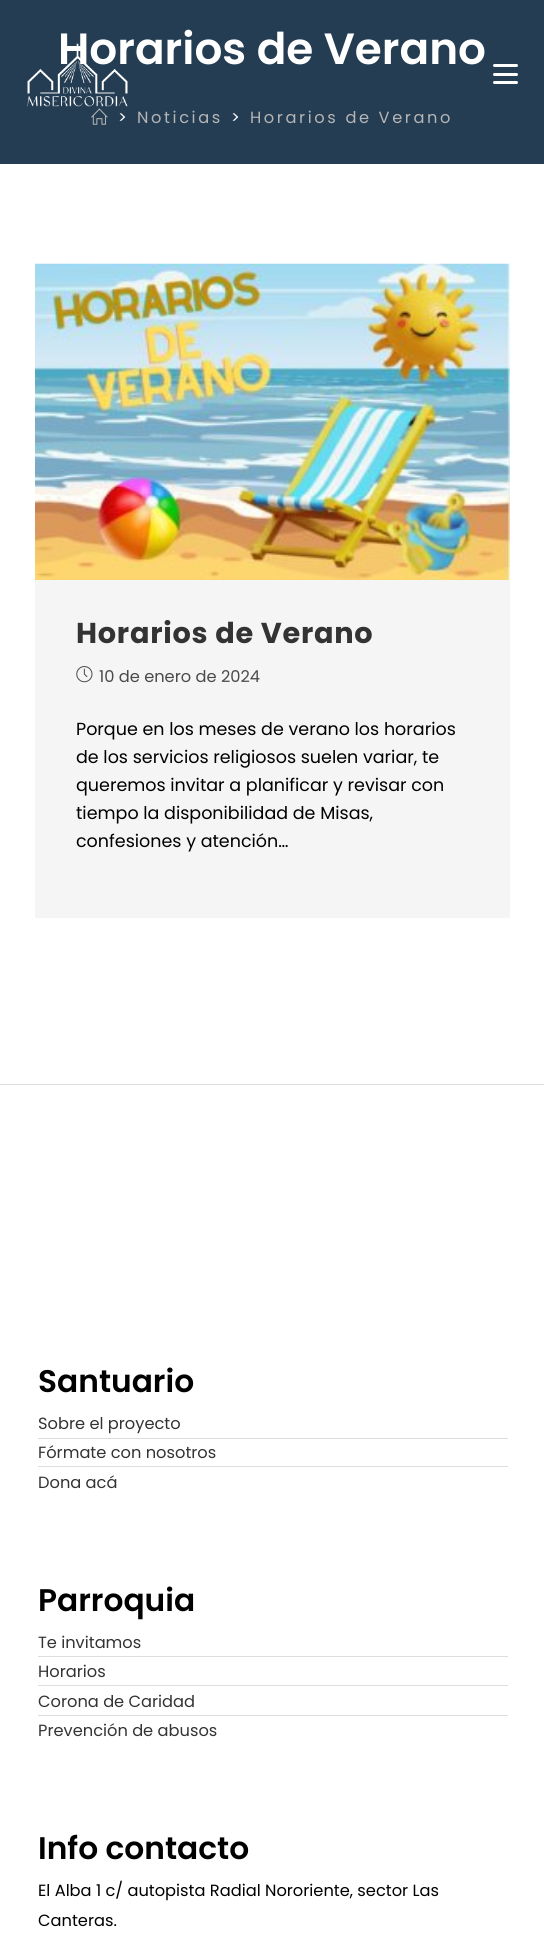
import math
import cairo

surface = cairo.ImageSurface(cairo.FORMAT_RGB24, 544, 1943)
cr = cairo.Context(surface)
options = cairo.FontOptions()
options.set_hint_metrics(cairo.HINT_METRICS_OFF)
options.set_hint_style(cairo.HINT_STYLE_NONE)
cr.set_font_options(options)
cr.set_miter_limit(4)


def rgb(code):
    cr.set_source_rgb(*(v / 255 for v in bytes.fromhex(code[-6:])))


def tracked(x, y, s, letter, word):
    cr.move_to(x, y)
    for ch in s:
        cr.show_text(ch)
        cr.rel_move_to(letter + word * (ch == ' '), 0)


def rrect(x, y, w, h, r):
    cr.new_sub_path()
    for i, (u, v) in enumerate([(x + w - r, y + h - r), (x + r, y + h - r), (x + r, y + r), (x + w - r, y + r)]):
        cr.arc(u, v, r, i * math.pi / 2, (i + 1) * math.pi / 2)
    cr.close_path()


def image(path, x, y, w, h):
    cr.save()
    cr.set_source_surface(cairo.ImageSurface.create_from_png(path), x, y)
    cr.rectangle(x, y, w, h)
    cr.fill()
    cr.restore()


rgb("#ffffff")
cr.paint()
rgb("#243d53")
cr.rectangle(0, 0, 544, 164)
cr.fill()
image("img/1.png", 91, 108, 17, 17)
rgb("#f5f5f5")
cr.rectangle(35, 580, 475, 338)
cr.fill()
image("img/2.png", 35, 263, 475, 317)
image("img/3.png", 76, 666, 17, 17)
rgb("#ffffff")
rrect(493, 64, 25, 3, 1.5)
cr.fill()
rrect(493, 73, 25, 3, 1.5)
cr.fill()
rrect(493, 81, 25, 3, 1.5)
cr.fill()
for x, y, w, h, color in [
    (0, 1084, 544, 1, "#dddddd"),
    (38, 1438, 470, 1, "#dddddd"),
    (38, 1466, 470, 1, "#dddddd"),
    (38, 1656, 470, 1, "#dddddd"),
    (38, 1685, 470, 1, "#dddddd"),
    (38, 1715, 470, 1, "#dddddd"),
]:
    rgb(color)
    cr.rectangle(x, y, w, h)
    cr.fill()
cr.select_font_face("Poppins SemiBold")
cr.set_font_size(43.75)
rgb("#ffffff")
cr.move_to(58, 64)
cr.show_text("Horarios de Verano")
cr.select_font_face("Poppins")
cr.set_font_size(16.25)
tracked(118, 123, ">", 2.6, 0)
rgb("#b5b5b5")
tracked(137, 123, "Noticias", 2.6, 0)
rgb("#ffffff")
tracked(231, 123, ">", 2.6, 0)
rgb("#b5b5b5")
tracked(250, 123, "Horarios de Verano", 2.6, 0)
cr.select_font_face("Poppins", cairo.FONT_SLANT_NORMAL, cairo.FONT_WEIGHT_BOLD)
cr.set_font_size(28.75)
rgb("#333333")
tracked(76, 643, "Horarios de Verano", 0.75, 0)
cr.select_font_face("Poppins")
cr.set_font_size(16.25)
rgb("#4a4a4a")
cr.move_to(99, 682)
cr.show_text("10 de enero de 2024")
cr.set_font_size(17.5)
rgb("#000000")
for x, y, s in [
    (76, 735, "Porque en los meses de verano los horarios"),
    (76, 763, "de los servicios religiosos suelen variar, te"),
    (76, 791, "queremos invitar a planificar y revisar con"),
    (76, 819, "tiempo la disponibilidad de Misas,"),
    (76, 847, "confesiones y atención…"),
]:
    cr.move_to(x, y)
    cr.show_text(s)
image("img/4.png", 27, 43, 101, 64)
cr.select_font_face("Poppins SemiBold")
cr.set_font_size(31.25)
cr.move_to(38, 1392)
cr.show_text("Santuario")
cr.select_font_face("Poppins")
cr.set_font_size(16.25)
rgb("#333333")
for x, y, s in [
    (38, 1429, "Sobre el proyecto"),
    (38, 1458, "Fórmate con nosotros"),
    (38, 1488, "Dona acá"),
]:
    cr.move_to(x, y)
    cr.show_text(s)
cr.select_font_face("Poppins SemiBold")
cr.set_font_size(31.25)
rgb("#000000")
cr.move_to(38, 1611)
cr.show_text("Parroquia")
cr.select_font_face("Poppins")
cr.set_font_size(16.25)
rgb("#333333")
for x, y, s in [
    (38, 1648, "Te invitamos"),
    (38, 1677, "Horarios"),
    (38, 1707, "Corona de Caridad"),
    (38, 1736, "Prevención de abusos"),
]:
    cr.move_to(x, y)
    cr.show_text(s)
cr.select_font_face("Poppins SemiBold")
cr.set_font_size(31.25)
rgb("#000000")
cr.move_to(38, 1859)
cr.show_text("Info contacto")
cr.select_font_face("Poppins")
cr.set_font_size(16.25)
cr.move_to(38, 1896)
cr.show_text("El Alba 1 c/ autopista Radial Nororiente, sector Las")
cr.move_to(38, 1926)
cr.show_text("Canteras.")
surface.write_to_png("page.png")
